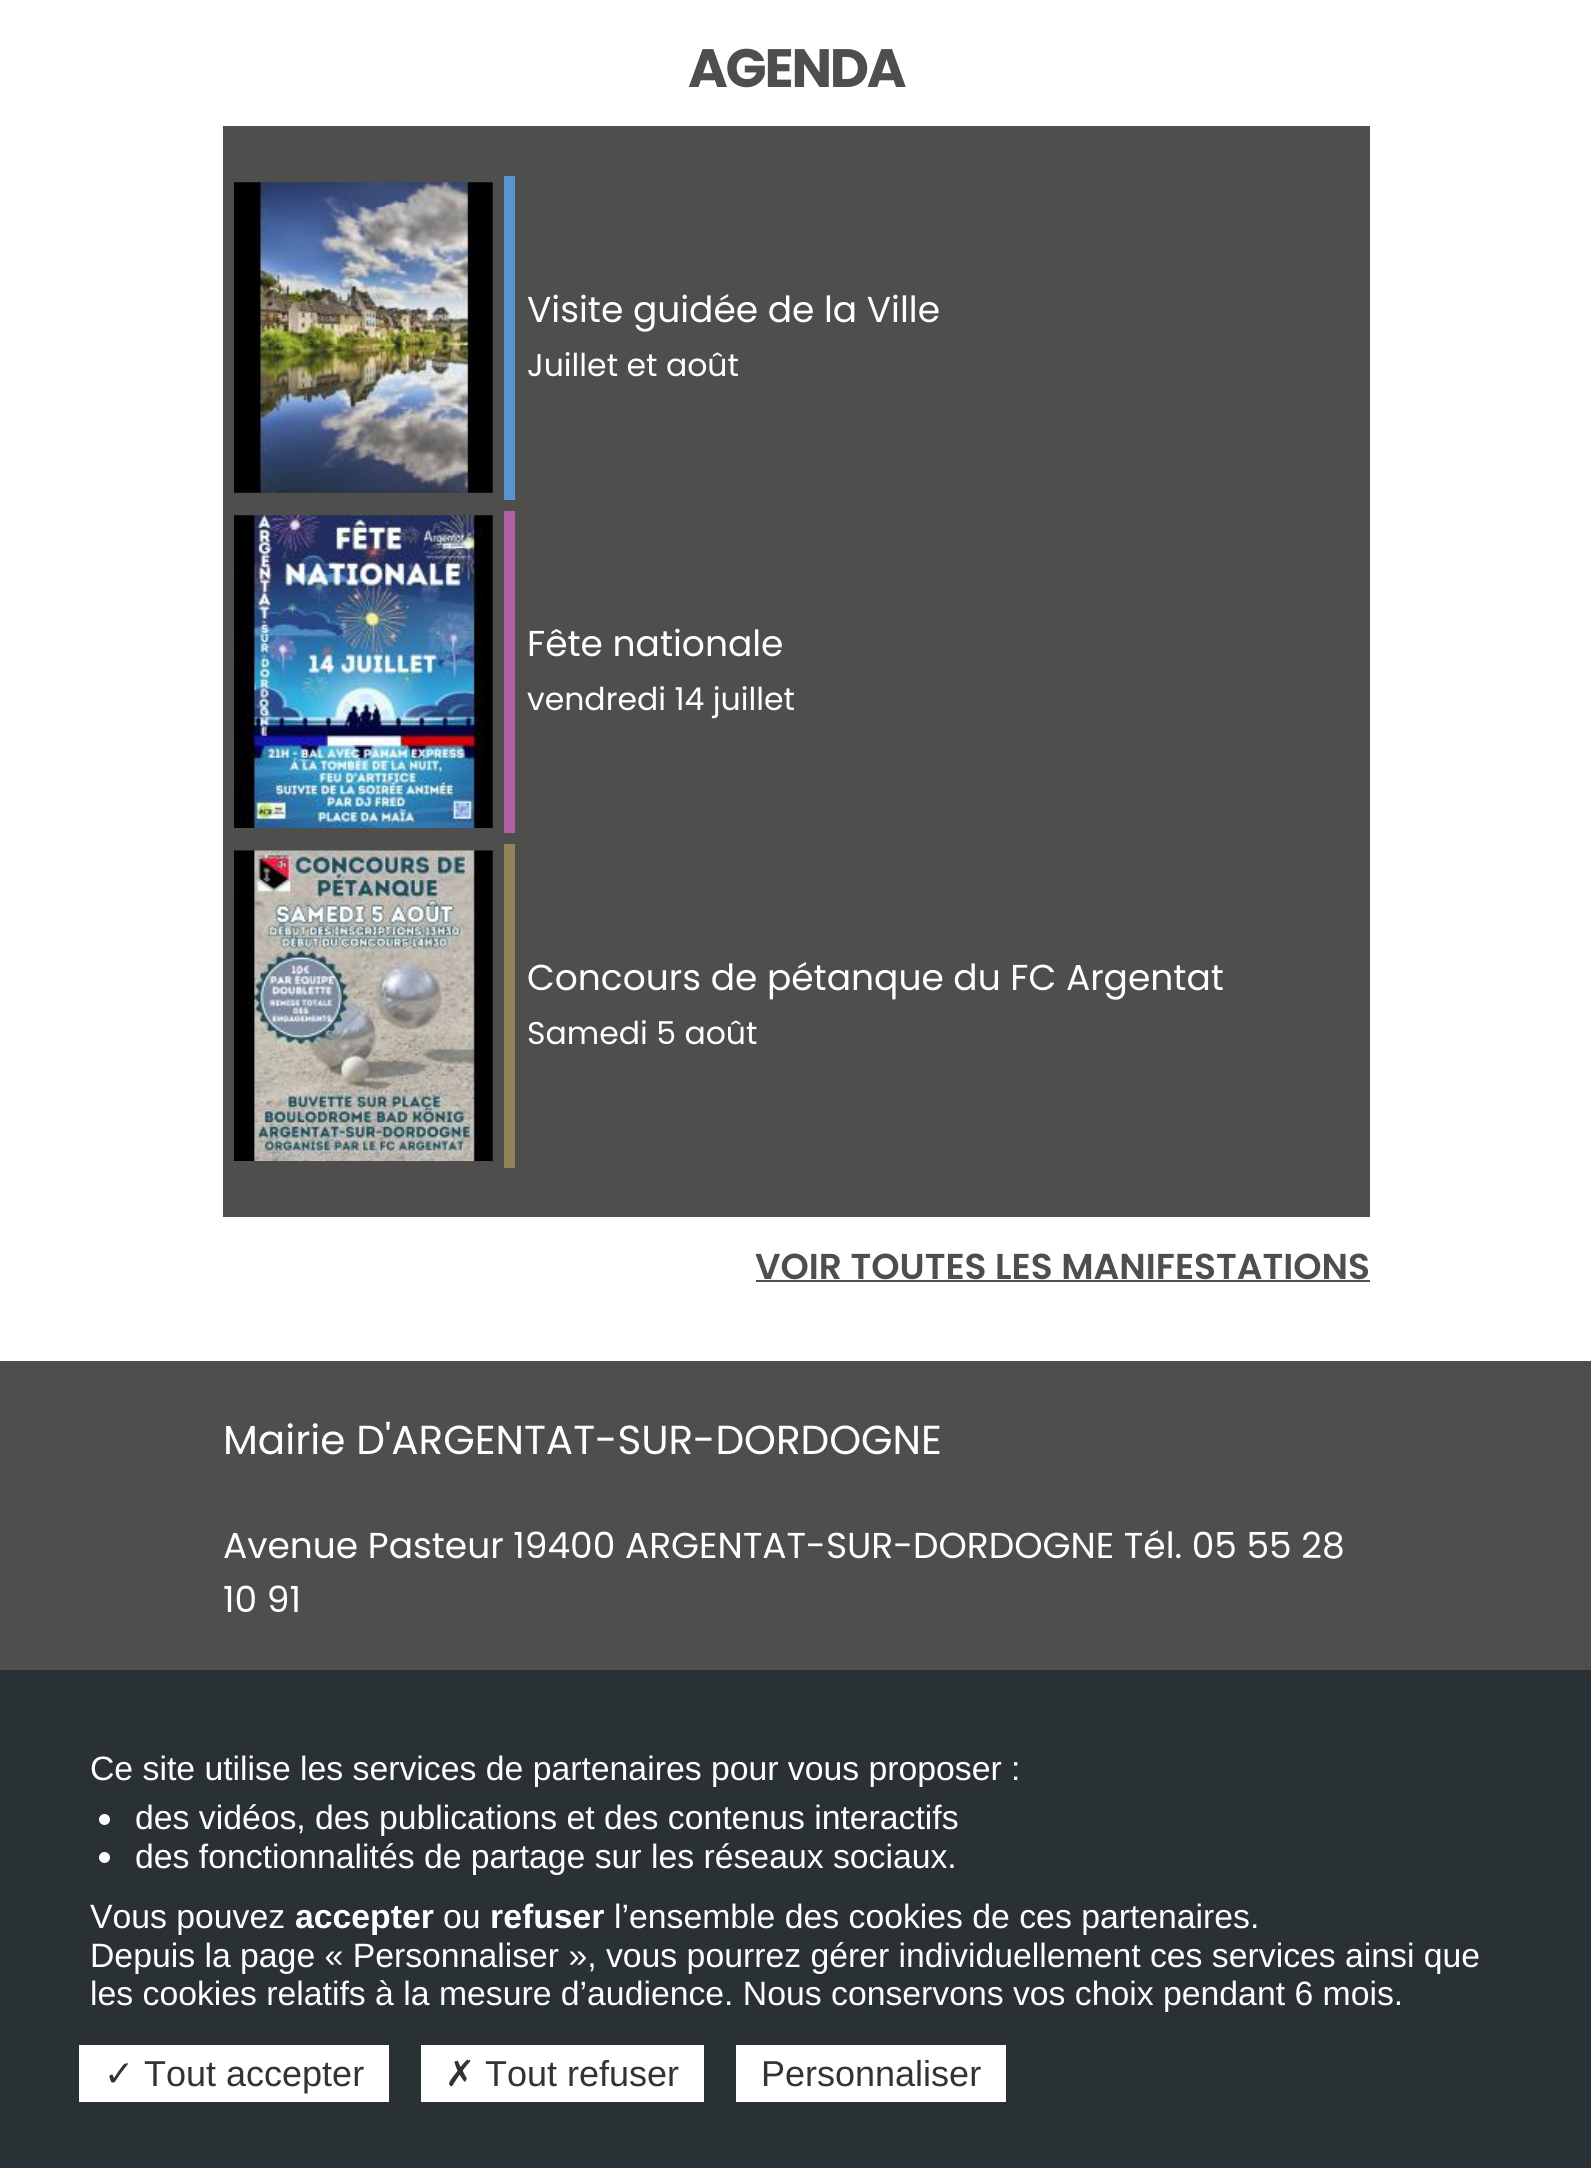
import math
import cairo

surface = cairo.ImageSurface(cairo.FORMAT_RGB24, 1591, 2168)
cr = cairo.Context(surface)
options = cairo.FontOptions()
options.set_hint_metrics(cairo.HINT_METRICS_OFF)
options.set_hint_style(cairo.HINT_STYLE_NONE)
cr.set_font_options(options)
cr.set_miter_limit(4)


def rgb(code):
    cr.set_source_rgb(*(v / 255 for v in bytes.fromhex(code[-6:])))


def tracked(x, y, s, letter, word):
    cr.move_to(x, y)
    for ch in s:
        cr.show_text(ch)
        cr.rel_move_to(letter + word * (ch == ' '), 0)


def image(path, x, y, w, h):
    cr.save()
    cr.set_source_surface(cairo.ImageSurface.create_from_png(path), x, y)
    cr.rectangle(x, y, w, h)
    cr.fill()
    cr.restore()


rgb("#ffffff")
cr.paint()
rgb("#4e4e4d")
cr.rectangle(223, 126, 1147, 1091)
cr.fill()
rgb("#5894cd")
cr.rectangle(504, 176, 11, 324)
cr.fill()
image("img/1.png", 234, 182, 259, 311)
rgb("#af60a2")
cr.rectangle(504, 511, 11, 322)
cr.fill()
image("img/2.png", 234, 515, 259, 313)
rgb("#928456")
cr.rectangle(504, 844, 11, 324)
cr.fill()
image("img/3.png", 234, 850, 259, 311)
for x, y, w, h, color in [
    (756, 1280, 614, 2, "#4e4e4d"),
    (0, 1361, 1591, 309, "#4e4e4d"),
    (0, 1670, 1591, 498, "#2a3135"),
]:
    rgb(color)
    cr.rectangle(x, y, w, h)
    cr.fill()
rgb("#ffffff")
cr.arc(104.5, 1819.5, 5.5, 0, 2 * math.pi)
cr.fill()
cr.arc(104.5, 1857.5, 5.5, 0, 2 * math.pi)
cr.fill()
for x, y, w, h, color in [
    (79, 2045, 310, 57, "#ffffff"),
    (421, 2045, 283, 57, "#ffffff"),
    (736, 2045, 270, 57, "#ffffff"),
]:
    rgb(color)
    cr.rectangle(x, y, w, h)
    cr.fill()
cr.select_font_face("Poppins", cairo.FONT_SLANT_NORMAL, cairo.FONT_WEIGHT_BOLD)
cr.set_font_size(54)
rgb("#4e4e4d")
tracked(688, 87, "AGENDA", -2.25, 0)
cr.select_font_face("Poppins")
cr.set_font_size(36)
rgb("#ffffff")
cr.move_to(527, 322)
cr.show_text("Visite guidée de la Ville")
cr.set_font_size(31.5)
cr.move_to(527, 376)
cr.show_text("Juillet et août")
cr.set_font_size(36)
cr.move_to(527, 656)
cr.show_text("Fête nationale")
cr.set_font_size(31.5)
cr.move_to(527, 710)
cr.show_text("vendredi 14 juillet")
cr.set_font_size(36)
cr.move_to(527, 990)
cr.show_text("Concours de pétanque du FC Argentat")
cr.set_font_size(31.5)
cr.move_to(527, 1044)
cr.show_text("Samedi 5 août")
cr.select_font_face("Poppins SemiBold")
cr.set_font_size(36)
rgb("#4e4e4d")
cr.move_to(755, 1279)
cr.show_text("VOIR TOUTES LES MANIFESTATIONS")
cr.select_font_face("Poppins")
cr.set_font_size(40.5)
rgb("#ffffff")
cr.move_to(223, 1454)
cr.show_text("Mairie D'ARGENTAT-SUR-DORDOGNE")
cr.set_font_size(36)
cr.move_to(223, 1558)
cr.show_text("Avenue Pasteur 19400 ARGENTAT-SUR-DORDOGNE Tél. 05 55 28")
cr.move_to(223, 1612)
cr.show_text("10 91")
cr.select_font_face("Liberation Sans")
cr.set_font_size(33.75)
for x, y, s in [
    (90, 1780, "Ce site utilise les services de partenaires pour vous proposer :"),
    (135, 1829, "des vidéos, des publications et des contenus interactifs"),
    (135, 1868, "des fonctionnalités de partage sur les réseaux sociaux."),
    (90, 1928, "Vous pouvez"),
]:
    cr.move_to(x, y)
    cr.show_text(s)
cr.select_font_face("Liberation Sans", cairo.FONT_SLANT_NORMAL, cairo.FONT_WEIGHT_BOLD)
cr.move_to(295, 1928)
cr.show_text("accepter")
cr.select_font_face("Liberation Sans")
cr.move_to(443, 1928)
cr.show_text("ou")
cr.select_font_face("Liberation Sans", cairo.FONT_SLANT_NORMAL, cairo.FONT_WEIGHT_BOLD)
cr.move_to(490, 1928)
cr.show_text("refuser")
cr.select_font_face("Liberation Sans")
for x, y, s in [
    (614, 1928, "l’ensemble des cookies de ces partenaires."),
    (90, 1967, "Depuis la page « Personnaliser », vous pourrez gérer individuellement ces services ainsi que"),
    (90, 2005, "les cookies relatifs à la mesure d’audience. Nous conservons vos choix pendant 6 mois."),
]:
    cr.move_to(x, y)
    cr.show_text(s)
cr.select_font_face("DejaVu Sans")
cr.set_font_size(36)
rgb("#333333")
cr.move_to(104, 2086)
cr.show_text("✓")
cr.select_font_face("Liberation Sans")
cr.move_to(144, 2086)
cr.show_text("Tout accepter")
cr.select_font_face("DejaVu Sans")
cr.move_to(445, 2086)
cr.show_text("✗")
cr.select_font_face("Liberation Sans")
cr.move_to(485, 2086)
cr.show_text("Tout refuser")
cr.move_to(761, 2086)
cr.show_text("Personnaliser")
surface.write_to_png("page.png")
